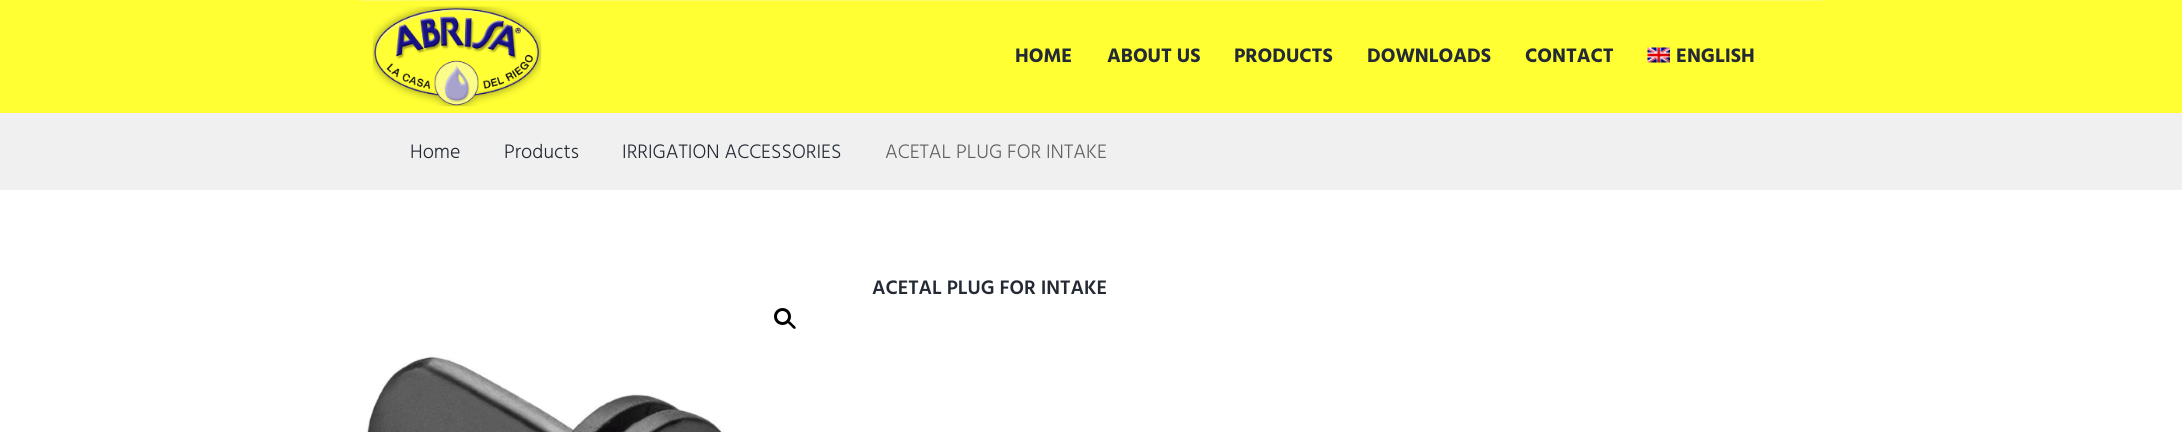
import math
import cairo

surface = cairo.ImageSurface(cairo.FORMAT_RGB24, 2182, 432)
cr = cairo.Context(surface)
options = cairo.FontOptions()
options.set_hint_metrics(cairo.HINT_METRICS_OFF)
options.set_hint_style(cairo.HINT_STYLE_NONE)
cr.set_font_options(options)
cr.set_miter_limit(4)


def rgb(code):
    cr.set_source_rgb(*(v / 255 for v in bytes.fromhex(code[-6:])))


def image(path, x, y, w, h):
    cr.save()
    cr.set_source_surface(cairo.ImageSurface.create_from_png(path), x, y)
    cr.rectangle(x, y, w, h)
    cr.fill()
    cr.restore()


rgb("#ffffff")
cr.paint()
rgb("#ffff33")
cr.rectangle(0, 0, 2182, 113)
cr.fill()
rgb("#fbfb6c")
cr.rectangle(360, 0, 1463, 1)
cr.fill()
image("img/1.png", 372, 6, 170, 101)
image("img/2.png", 1647, 47, 23, 16)
rgb("#f0f0f0")
cr.rectangle(0, 113, 2182, 77)
cr.fill()
cr.arc(782.5, 316.5, 7, 0, 2 * math.pi)
rgb("#000000")
cr.set_line_width(3)
cr.stroke()
cr.new_path()
cr.move_to(788, 321.5)
cr.curve_to(789.5, 320, 792, 323.5, 792.5, 324)
cr.curve_to(793.5, 325, 796.5, 327, 795.5, 328.5)
cr.curve_to(794, 330, 791.5, 326.5, 791, 326)
cr.curve_to(790, 325, 787, 323, 788, 321.5)
cr.close_path()
cr.fill()
image("img/3.png", 366, 354, 358, 78)
cr.select_font_face("Hind", cairo.FONT_SLANT_NORMAL, cairo.FONT_WEIGHT_BOLD)
cr.set_font_size(20)
rgb("#232a34")
for x, y, s in [
    (1015, 62, "HOME"),
    (1107, 62, "ABOUT US"),
    (1234, 62, "PRODUCTS"),
    (1367, 62, "DOWNLOADS"),
    (1525, 62, "CONTACT"),
    (1676, 62, "ENGLISH"),
]:
    cr.move_to(x, y)
    cr.show_text(s)
cr.select_font_face("Hind Light")
for x, y, s in [
    (410, 158, "Home"),
    (504, 158, "Products"),
    (622, 158, "IRRIGATION ACCESSORIES"),
]:
    cr.move_to(x, y)
    cr.show_text(s)
rgb("#606060")
cr.move_to(885, 158)
cr.show_text("ACETAL PLUG FOR INTAKE")
cr.select_font_face("Hind SemiBold")
rgb("#232a34")
cr.move_to(872, 294)
cr.show_text("ACETAL PLUG FOR INTAKE")
surface.write_to_png("page.png")
